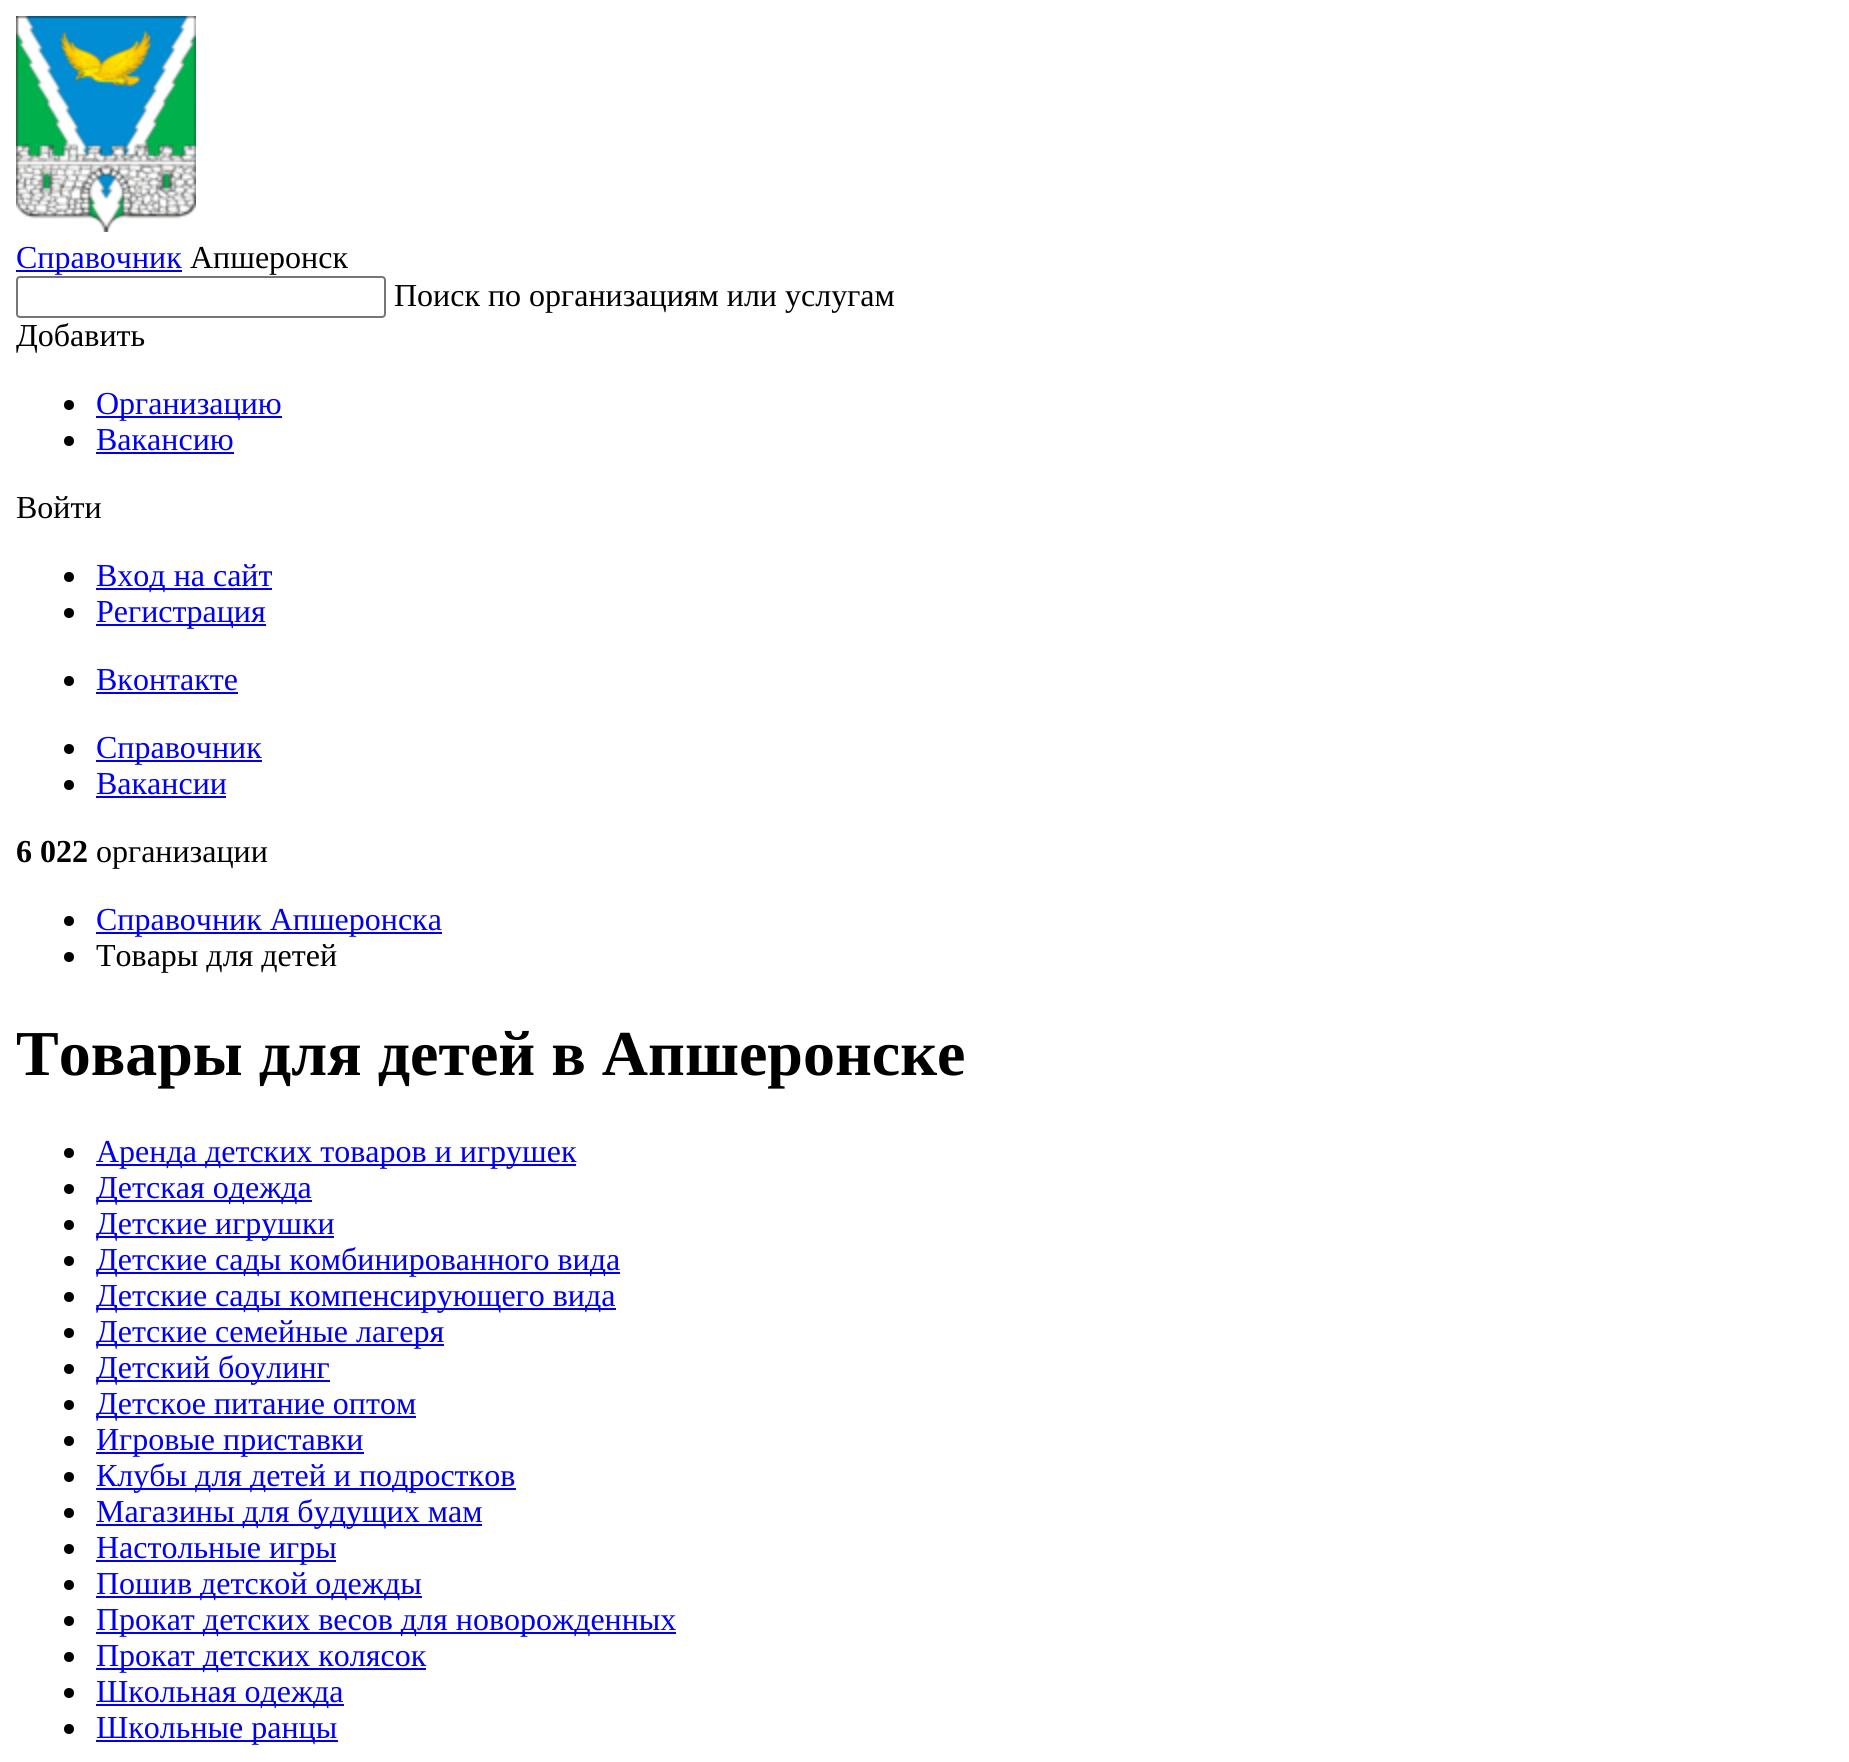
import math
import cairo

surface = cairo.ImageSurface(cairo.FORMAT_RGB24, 1849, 1762)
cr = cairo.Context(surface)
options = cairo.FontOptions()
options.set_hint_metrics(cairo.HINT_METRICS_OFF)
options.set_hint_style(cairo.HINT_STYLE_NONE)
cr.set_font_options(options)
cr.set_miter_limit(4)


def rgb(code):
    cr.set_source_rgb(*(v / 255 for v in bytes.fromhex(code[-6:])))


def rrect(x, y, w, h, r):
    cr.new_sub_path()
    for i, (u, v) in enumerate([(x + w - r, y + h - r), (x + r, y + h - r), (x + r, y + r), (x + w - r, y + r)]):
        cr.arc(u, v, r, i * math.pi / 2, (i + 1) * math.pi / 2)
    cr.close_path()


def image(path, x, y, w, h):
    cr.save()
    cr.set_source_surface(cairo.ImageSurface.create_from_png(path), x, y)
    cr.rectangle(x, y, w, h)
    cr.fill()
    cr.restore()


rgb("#ffffff")
cr.paint()
image("img/1.png", 16, 16, 180, 216)
rgb("#0000ee")
cr.rectangle(16, 270, 166, 2)
cr.fill()
rrect(17, 277, 368, 40, 3)
rgb("#767676")
cr.stroke()
rgb("#000000")
cr.arc(69, 405, 5, 0, 2 * math.pi)
cr.fill()
rgb("#0000ee")
cr.rectangle(96, 416, 186, 2)
cr.fill()
rgb("#000000")
cr.arc(69, 441, 5, 0, 2 * math.pi)
cr.fill()
rgb("#0000ee")
cr.rectangle(96, 452, 138, 2)
cr.fill()
rgb("#000000")
cr.arc(69, 577, 5, 0, 2 * math.pi)
cr.fill()
rgb("#0000ee")
cr.rectangle(96, 588, 176, 2)
cr.fill()
rgb("#000000")
cr.arc(69, 613, 5, 0, 2 * math.pi)
cr.fill()
rgb("#0000ee")
cr.rectangle(96, 624, 170, 2)
cr.fill()
rgb("#000000")
cr.arc(69, 681, 5, 0, 2 * math.pi)
cr.fill()
rgb("#0000ee")
cr.rectangle(96, 692, 142, 2)
cr.fill()
rgb("#000000")
cr.arc(69, 749, 5, 0, 2 * math.pi)
cr.fill()
rgb("#0000ee")
cr.rectangle(96, 760, 166, 2)
cr.fill()
rgb("#000000")
cr.arc(69, 785, 5, 0, 2 * math.pi)
cr.fill()
rgb("#0000ee")
cr.rectangle(96, 796, 130, 2)
cr.fill()
rgb("#000000")
cr.arc(69, 921, 5, 0, 2 * math.pi)
cr.fill()
rgb("#0000ee")
cr.rectangle(96, 932, 346, 2)
cr.fill()
rgb("#000000")
cr.arc(69, 957, 5, 0, 2 * math.pi)
cr.fill()
cr.arc(69, 1153, 5, 0, 2 * math.pi)
cr.fill()
rgb("#0000ee")
cr.rectangle(96, 1164, 480, 2)
cr.fill()
rgb("#000000")
cr.arc(69, 1189, 5, 0, 2 * math.pi)
cr.fill()
rgb("#0000ee")
cr.rectangle(96, 1200, 216, 2)
cr.fill()
rgb("#000000")
cr.arc(69, 1225, 5, 0, 2 * math.pi)
cr.fill()
rgb("#0000ee")
cr.rectangle(96, 1236, 238, 2)
cr.fill()
rgb("#000000")
cr.arc(69, 1261, 5, 0, 2 * math.pi)
cr.fill()
rgb("#0000ee")
cr.rectangle(96, 1272, 524, 2)
cr.fill()
rgb("#000000")
cr.arc(69, 1297, 5, 0, 2 * math.pi)
cr.fill()
rgb("#0000ee")
cr.rectangle(96, 1308, 520, 2)
cr.fill()
rgb("#000000")
cr.arc(69, 1333, 5, 0, 2 * math.pi)
cr.fill()
rgb("#0000ee")
cr.rectangle(96, 1344, 348, 2)
cr.fill()
rgb("#000000")
cr.arc(69, 1369, 5, 0, 2 * math.pi)
cr.fill()
rgb("#0000ee")
cr.rectangle(96, 1380, 234, 2)
cr.fill()
rgb("#000000")
cr.arc(69, 1405, 5, 0, 2 * math.pi)
cr.fill()
rgb("#0000ee")
cr.rectangle(96, 1416, 320, 2)
cr.fill()
rgb("#000000")
cr.arc(69, 1441, 5, 0, 2 * math.pi)
cr.fill()
rgb("#0000ee")
cr.rectangle(96, 1452, 268, 2)
cr.fill()
rgb("#000000")
cr.arc(69, 1477, 5, 0, 2 * math.pi)
cr.fill()
rgb("#0000ee")
cr.rectangle(96, 1488, 420, 2)
cr.fill()
rgb("#000000")
cr.arc(69, 1513, 5, 0, 2 * math.pi)
cr.fill()
rgb("#0000ee")
cr.rectangle(96, 1524, 386, 2)
cr.fill()
rgb("#000000")
cr.arc(69, 1549, 5, 0, 2 * math.pi)
cr.fill()
rgb("#0000ee")
cr.rectangle(96, 1560, 240, 2)
cr.fill()
rgb("#000000")
cr.arc(69, 1585, 5, 0, 2 * math.pi)
cr.fill()
rgb("#0000ee")
cr.rectangle(96, 1596, 326, 2)
cr.fill()
rgb("#000000")
cr.arc(69, 1621, 5, 0, 2 * math.pi)
cr.fill()
rgb("#0000ee")
cr.rectangle(96, 1632, 580, 2)
cr.fill()
rgb("#000000")
cr.arc(69, 1657, 5, 0, 2 * math.pi)
cr.fill()
rgb("#0000ee")
cr.rectangle(96, 1668, 330, 2)
cr.fill()
rgb("#000000")
cr.arc(69, 1693, 5, 0, 2 * math.pi)
cr.fill()
rgb("#0000ee")
cr.rectangle(96, 1704, 248, 2)
cr.fill()
rgb("#000000")
cr.arc(69, 1729, 5, 0, 2 * math.pi)
cr.fill()
rgb("#0000ee")
cr.rectangle(96, 1740, 242, 2)
cr.fill()
cr.select_font_face("Liberation Serif")
cr.set_font_size(32)
cr.move_to(16, 268)
cr.show_text("Справочник")
rgb("#000000")
for x, y, s in [
    (190, 268, "Апшеронск"),
    (394, 306, "Поиск по организациям или услугам"),
    (16, 346, "Добавить"),
]:
    cr.move_to(x, y)
    cr.show_text(s)
rgb("#0000ee")
cr.move_to(96, 414)
cr.show_text("Организацию")
cr.move_to(96, 450)
cr.show_text("Вакансию")
rgb("#000000")
cr.move_to(16, 518)
cr.show_text("Войти")
rgb("#0000ee")
for x, y, s in [
    (96, 586, "Вход на сайт"),
    (96, 622, "Регистрация"),
    (96, 690, "Вконтакте"),
    (96, 758, "Справочник"),
    (96, 794, "Вакансии"),
]:
    cr.move_to(x, y)
    cr.show_text(s)
cr.select_font_face("Liberation Serif", cairo.FONT_SLANT_NORMAL, cairo.FONT_WEIGHT_BOLD)
rgb("#000000")
cr.move_to(16, 862)
cr.show_text("6 022")
cr.select_font_face("Liberation Serif")
cr.move_to(96, 862)
cr.show_text("организации")
rgb("#0000ee")
cr.move_to(96, 930)
cr.show_text("Справочник Апшеронска")
rgb("#000000")
cr.move_to(96, 966)
cr.show_text("Товары для детей")
cr.select_font_face("Liberation Serif", cairo.FONT_SLANT_NORMAL, cairo.FONT_WEIGHT_BOLD)
cr.set_font_size(64)
cr.move_to(16, 1075)
cr.show_text("Товары для детей в Апшеронске")
cr.select_font_face("Liberation Serif")
cr.set_font_size(32)
rgb("#0000ee")
for x, y, s in [
    (96, 1162, "Аренда детских товаров и игрушек"),
    (96, 1198, "Детская одежда"),
    (96, 1234, "Детские игрушки"),
    (96, 1270, "Детские сады комбинированного вида"),
    (96, 1306, "Детские сады компенсирующего вида"),
    (96, 1342, "Детские семейные лагеря"),
    (96, 1378, "Детский боулинг"),
    (96, 1414, "Детское питание оптом"),
    (96, 1450, "Игровые приставки"),
    (96, 1486, "Клубы для детей и подростков"),
    (96, 1522, "Магазины для будущих мам"),
    (96, 1558, "Настольные игры"),
    (96, 1594, "Пошив детской одежды"),
    (96, 1630, "Прокат детских весов для новорожденных"),
    (96, 1666, "Прокат детских колясок"),
    (96, 1702, "Школьная одежда"),
    (96, 1738, "Школьные ранцы"),
]:
    cr.move_to(x, y)
    cr.show_text(s)
surface.write_to_png("page.png")
